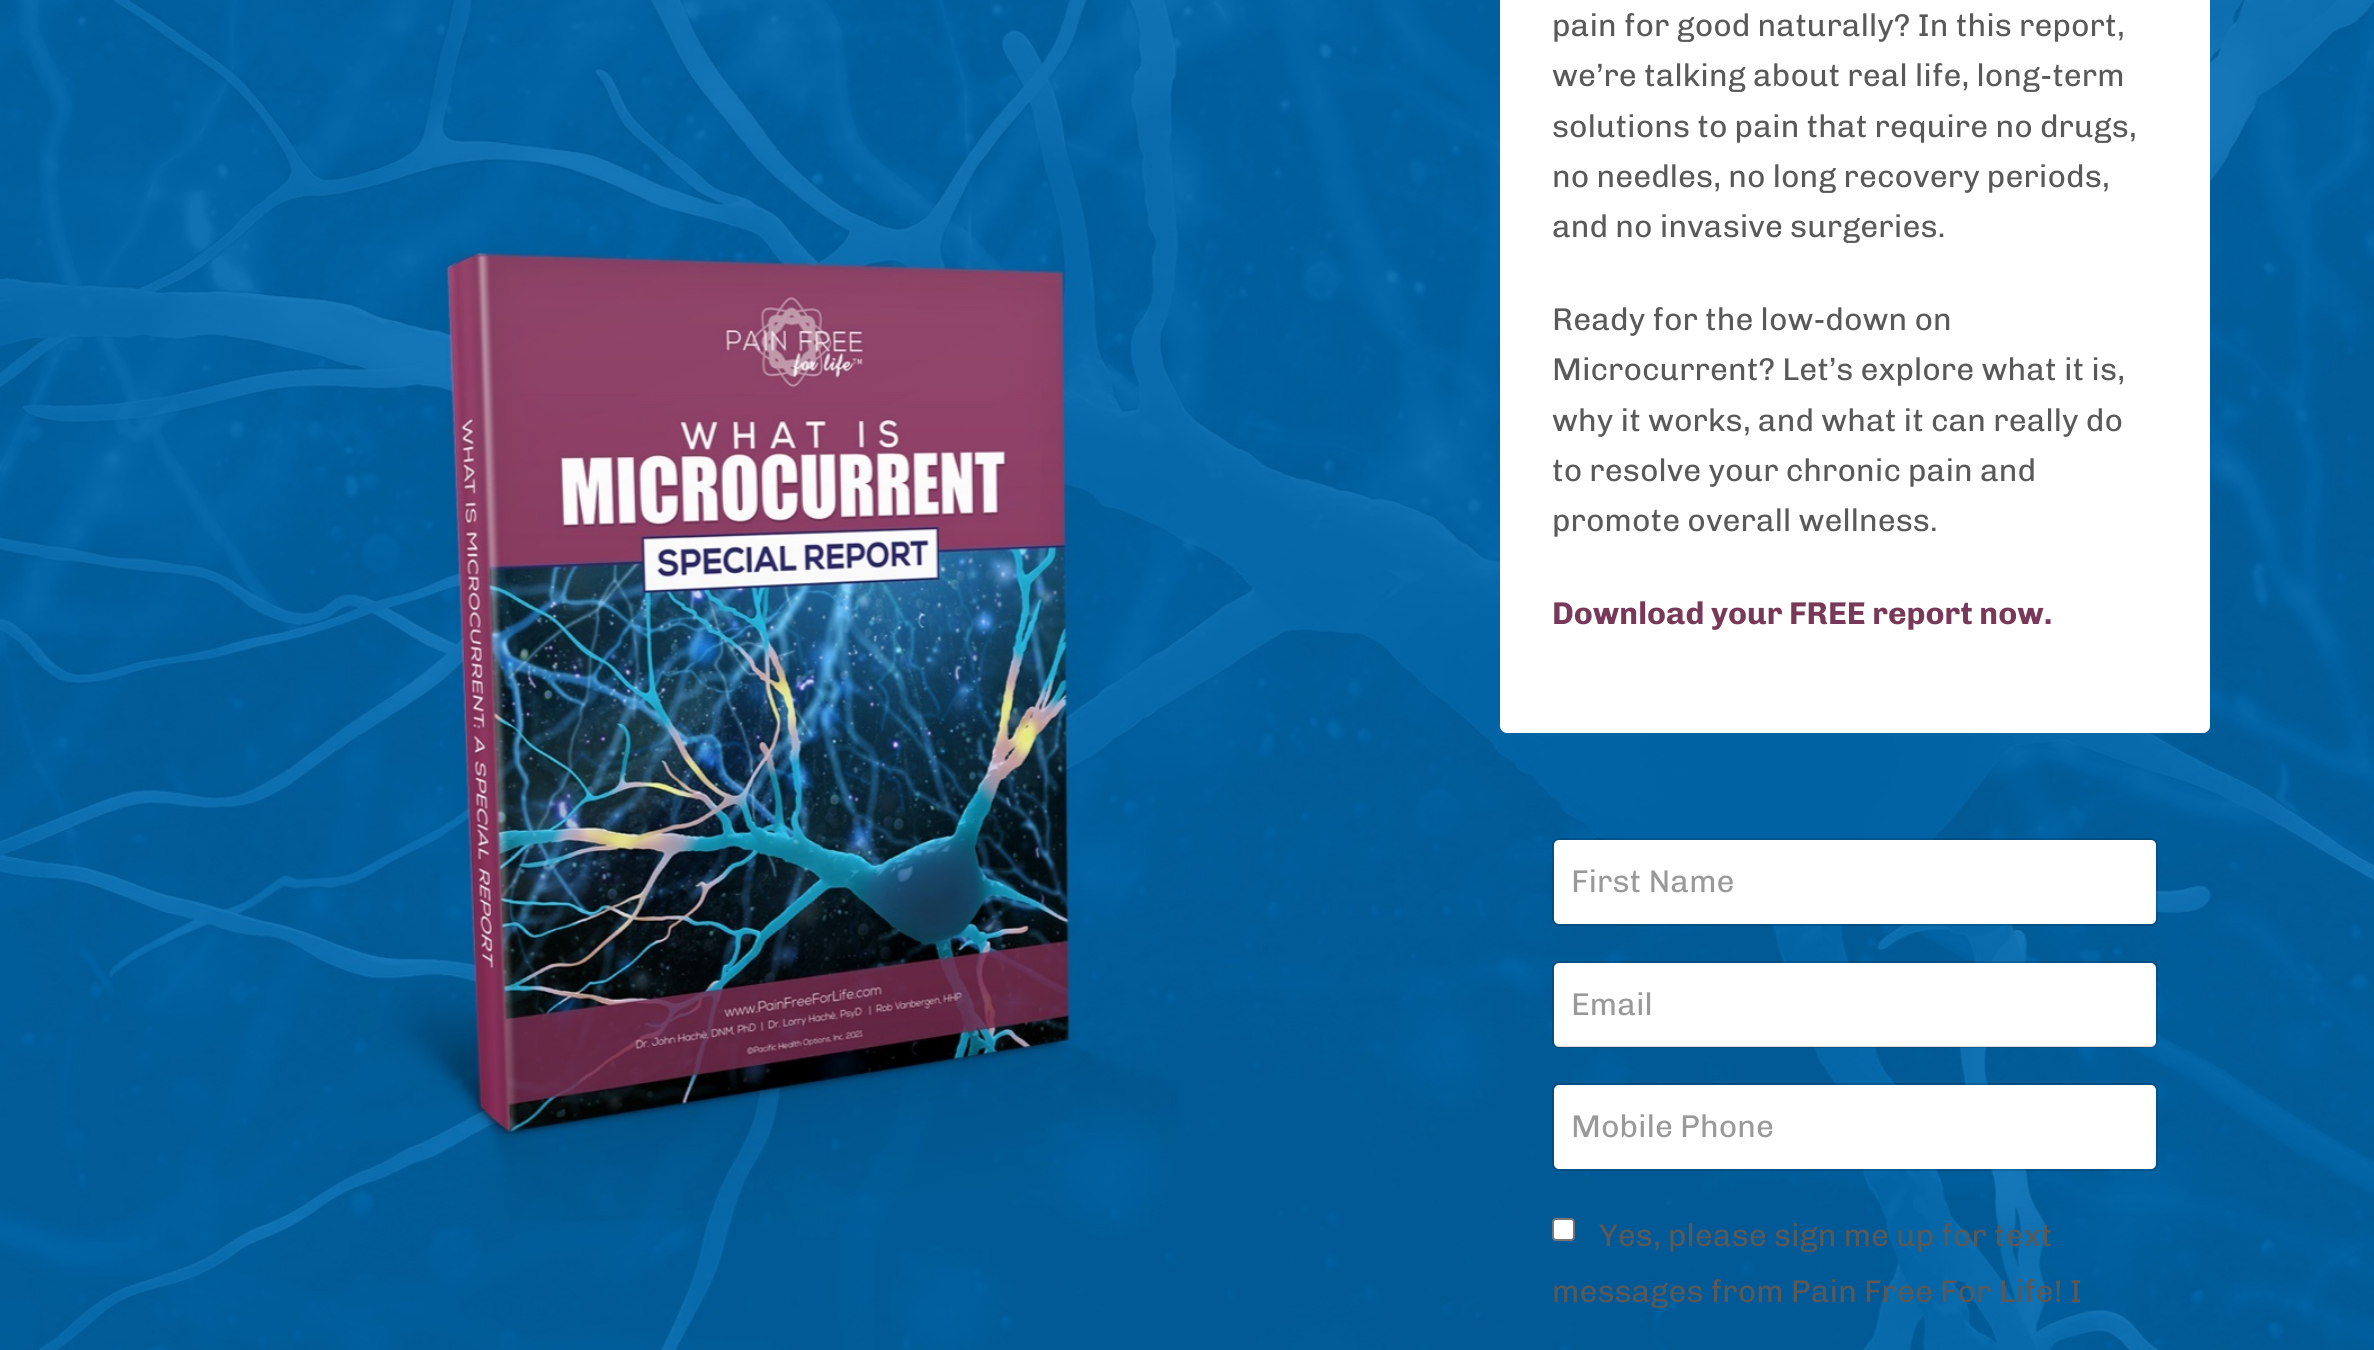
import math
import cairo

surface = cairo.ImageSurface(cairo.FORMAT_RGB24, 2374, 1350)
cr = cairo.Context(surface)
options = cairo.FontOptions()
options.set_hint_metrics(cairo.HINT_METRICS_OFF)
options.set_hint_style(cairo.HINT_STYLE_NONE)
cr.set_font_options(options)
cr.set_miter_limit(4)


def rgb(code):
    cr.set_source_rgb(*(v / 255 for v in bytes.fromhex(code[-6:])))


def rrect(x, y, w, h, r):
    cr.new_sub_path()
    for i, (u, v) in enumerate([(x + w - r, y + h - r), (x + r, y + h - r), (x + r, y + r), (x + w - r, y + r)]):
        cr.arc(u, v, r, i * math.pi / 2, (i + 1) * math.pi / 2)
    cr.close_path()


def image(path, x, y, w, h):
    cr.save()
    cr.set_source_surface(cairo.ImageSurface.create_from_png(path), x, y)
    cr.rectangle(x, y, w, h)
    cr.fill()
    cr.restore()


rgb("#ffffff")
cr.paint()
image("img/1.png", 0, 0, 2374, 1350)
rgb("#ffffff")
rrect(1500, -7, 710, 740, 7)
cr.fill()
rrect(1554, 840, 602, 84, 5)
cr.fill()
rrect(1553, 839, 604, 86, 6)
cr.set_source_rgba(0, 0, 0, 0.15)
cr.stroke()
rgb("#ffffff")
rrect(1554, 963, 602, 84, 5)
cr.fill()
rrect(1553, 962, 604, 85, 6)
cr.set_source_rgba(0, 0, 0, 0.15)
cr.stroke()
rgb("#ffffff")
rrect(1554, 1085, 602, 84, 5)
cr.fill()
rrect(1553, 1084, 604, 86, 6)
cr.set_source_rgba(0, 0, 0, 0.15)
cr.stroke()
rgb("#ffffff")
rrect(1553, 1219, 21, 21, 3)
cr.fill_preserve()
rgb("#767676")
cr.stroke()
cr.select_font_face("Chivo")
cr.set_font_size(31.5)
rgb("#595959")
for x, y, s in [
    (1552, 36, "pain for good naturally? In this report,"),
    (1552, 86, "we’re talking about real life, long-term"),
    (1552, 137, "solutions to pain that require no drugs,"),
    (1552, 187, "no needles, no long recovery periods,"),
    (1552, 237, "and no invasive surgeries."),
    (1552, 330, "Ready for the low-down on"),
    (1552, 380, "Microcurrent? Let’s explore what it is,"),
    (1552, 431, "why it works, and what it can really do"),
    (1552, 481, "to resolve your chronic pain and"),
    (1552, 531, "promote overall wellness."),
]:
    cr.move_to(x, y)
    cr.show_text(s)
cr.select_font_face("Chivo", cairo.FONT_SLANT_NORMAL, cairo.FONT_WEIGHT_BOLD)
rgb("#773957")
cr.move_to(1552, 624)
cr.show_text("Download your FREE report now.")
cr.select_font_face("Chivo")
rgb("#999999")
for x, y, s in [
    (1571, 892, "First Name"),
    (1571, 1015, "Email"),
    (1571, 1137, "Mobile Phone"),
]:
    cr.move_to(x, y)
    cr.show_text(s)
rgb("#595959")
cr.move_to(1599, 1246)
cr.show_text("Yes, please sign me up for text")
cr.move_to(1552, 1302)
cr.show_text("messages from Pain Free For Life! I")
surface.write_to_png("page.png")
